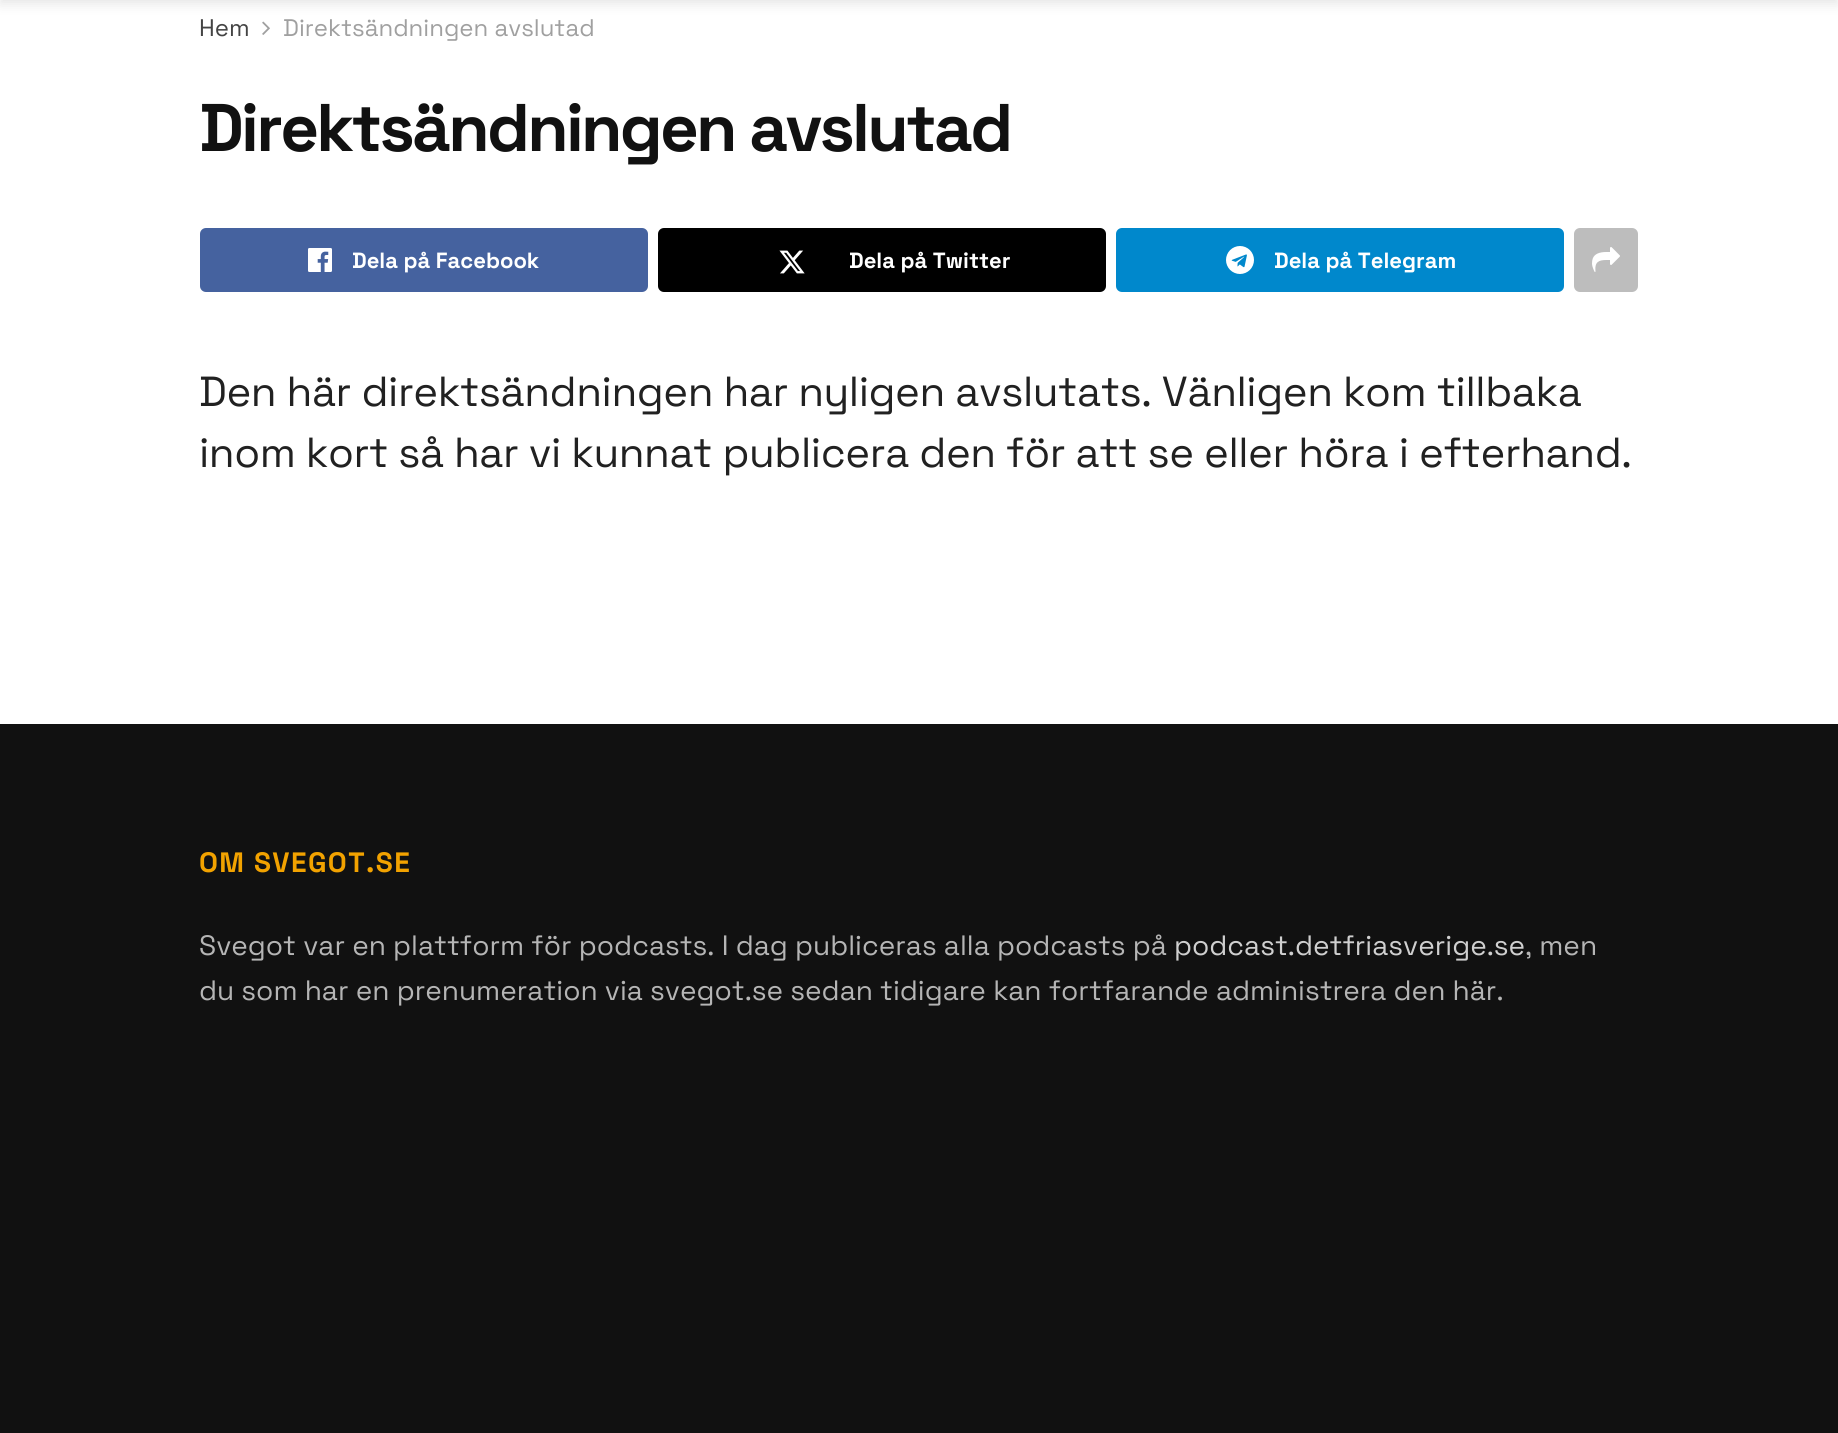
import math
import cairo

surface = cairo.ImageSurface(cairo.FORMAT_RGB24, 1838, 1433)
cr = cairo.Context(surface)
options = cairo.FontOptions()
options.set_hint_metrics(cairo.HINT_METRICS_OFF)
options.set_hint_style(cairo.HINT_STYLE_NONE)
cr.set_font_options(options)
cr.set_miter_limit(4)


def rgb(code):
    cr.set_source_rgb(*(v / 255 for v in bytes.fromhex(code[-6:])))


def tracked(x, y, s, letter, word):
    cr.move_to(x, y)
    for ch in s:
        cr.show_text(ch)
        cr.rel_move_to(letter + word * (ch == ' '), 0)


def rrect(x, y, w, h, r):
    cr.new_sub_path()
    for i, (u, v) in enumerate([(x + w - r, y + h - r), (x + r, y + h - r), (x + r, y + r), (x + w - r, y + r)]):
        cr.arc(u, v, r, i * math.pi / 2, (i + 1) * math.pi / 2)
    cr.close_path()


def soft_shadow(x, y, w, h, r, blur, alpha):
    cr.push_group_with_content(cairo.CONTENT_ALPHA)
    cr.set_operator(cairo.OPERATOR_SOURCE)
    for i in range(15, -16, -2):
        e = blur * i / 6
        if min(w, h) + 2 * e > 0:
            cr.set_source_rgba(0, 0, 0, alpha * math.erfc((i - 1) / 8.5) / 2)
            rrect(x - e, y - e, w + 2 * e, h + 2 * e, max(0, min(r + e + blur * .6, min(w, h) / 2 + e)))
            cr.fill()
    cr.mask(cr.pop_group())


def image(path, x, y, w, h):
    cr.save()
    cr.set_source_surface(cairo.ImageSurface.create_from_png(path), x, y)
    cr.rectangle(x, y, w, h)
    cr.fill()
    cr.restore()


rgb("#ffffff")
cr.paint()
image("img/1.png", 262, 21, 8, 14)
rgb("#000000")
soft_shadow(0, -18, 1838, 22, 0, 6, 0.1)
rgb("#45629f")
rrect(200, 228, 448, 64, 6)
cr.fill()
image("img/2.png", 308, 248, 24, 24)
rgb("#000000")
rrect(658, 228, 448, 64, 6)
cr.fill()
image("img/3.png", 779, 250, 26, 24)
rgb("#0088cc")
rrect(1116, 228, 448, 64, 6)
cr.fill()
image("img/4.png", 1226, 246, 28, 28)
rgb("#bdbdbd")
rrect(1574, 228, 64, 64, 6)
cr.fill()
image("img/5.png", 1592, 247, 28, 25)
rgb("#111111")
cr.rectangle(0, 724, 1838, 709)
cr.fill()
cr.select_font_face("Space Grotesk")
cr.set_font_size(24)
rgb("#444444")
cr.move_to(199, 36)
cr.show_text("Hem")
rgb("#a0a0a0")
cr.move_to(283, 36)
cr.show_text("Direktsändningen avslutad")
cr.select_font_face("Space Grotesk", cairo.FONT_SLANT_NORMAL, cairo.FONT_WEIGHT_BOLD)
cr.set_font_size(67.25)
rgb("#111111")
tracked(199, 151, "Direktsändningen avslutad", -2.7, 0)
cr.set_font_size(22)
rgb("#ffffff")
for x, y, s in [
    (352, 268, "Dela på Facebook"),
    (849, 268, "Dela på Twitter"),
    (1274, 268, "Dela på Telegram"),
]:
    cr.move_to(x, y)
    cr.show_text(s)
cr.select_font_face("Space Grotesk")
cr.set_font_size(42)
rgb("#212121")
tracked(199, 406, "Den här direktsändningen har nyligen avslutats. Vänligen kom tillbaka", -0.42, 0)
tracked(199, 467, "inom kort så har vi kunnat publicera den för att se eller höra i efterhand.", -0.42, 0)
cr.select_font_face("Space Grotesk", cairo.FONT_SLANT_NORMAL, cairo.FONT_WEIGHT_BOLD)
cr.set_font_size(28)
rgb("#f2a200")
tracked(199, 872, "OM SVEGOT.SE", 1.4, 0)
cr.select_font_face("Space Grotesk")
rgb("#b5b5b5")
cr.move_to(199, 955)
cr.show_text("Svegot var en plattform för podcasts. I dag publiceras alla podcasts på")
rgb("#cfcfcf")
cr.move_to(1174, 955)
cr.show_text("podcast.detfriasverige.se")
rgb("#b5b5b5")
cr.move_to(1525, 955)
cr.show_text(", men")
cr.move_to(199, 1000)
cr.show_text("du som har en prenumeration via svegot.se sedan tidigare kan fortfarande administrera den här.")
surface.write_to_png("page.png")
